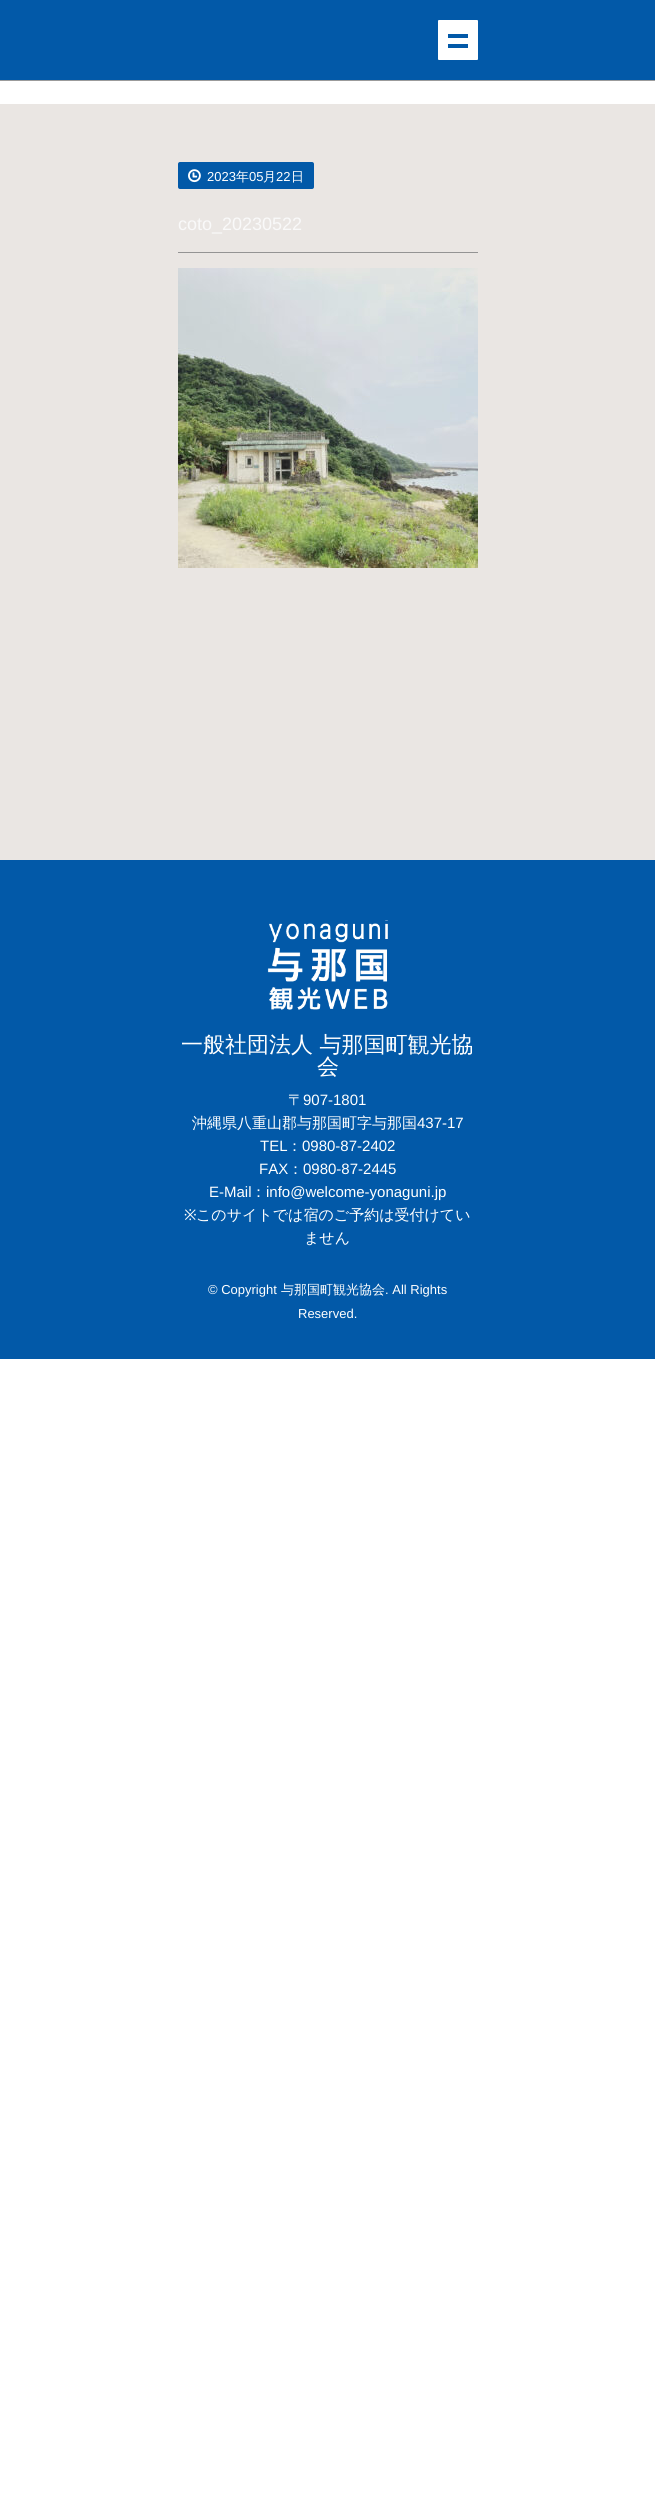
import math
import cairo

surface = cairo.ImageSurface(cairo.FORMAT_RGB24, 655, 2500)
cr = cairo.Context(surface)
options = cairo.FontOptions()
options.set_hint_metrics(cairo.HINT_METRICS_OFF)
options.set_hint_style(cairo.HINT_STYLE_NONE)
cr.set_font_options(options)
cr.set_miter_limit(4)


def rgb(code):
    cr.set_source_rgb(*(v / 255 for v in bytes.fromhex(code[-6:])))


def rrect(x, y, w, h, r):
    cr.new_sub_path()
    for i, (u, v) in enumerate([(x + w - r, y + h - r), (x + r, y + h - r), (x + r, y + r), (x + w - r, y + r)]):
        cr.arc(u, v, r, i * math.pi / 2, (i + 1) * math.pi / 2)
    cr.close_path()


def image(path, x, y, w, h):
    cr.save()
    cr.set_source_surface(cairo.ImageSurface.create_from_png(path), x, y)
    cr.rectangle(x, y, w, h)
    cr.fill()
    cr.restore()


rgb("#ffffff")
cr.paint()
rgb("#eae6e3")
cr.rectangle(0, 104, 655, 756)
cr.fill()
rgb("#0259a8")
cr.rectangle(0, 0, 655, 80)
cr.fill()
rgb("#ffffff")
rrect(438, 20, 40, 40, 1)
cr.fill()
for x, y, w, h, color in [
    (448, 34, 20, 4, "#0259a8"),
    (448, 44, 20, 4, "#0259a8"),
    (0, 80, 655, 1, "#9b9b9b"),
]:
    rgb(color)
    cr.rectangle(x, y, w, h)
    cr.fill()
rgb("#0259a8")
rrect(178, 162, 136, 27, 2)
cr.fill()
image("img/1.png", 188, 169, 13, 14)
rgb("#949494")
cr.rectangle(178, 252, 300, 1)
cr.fill()
image("img/2.png", 178, 268, 300, 300)
rgb("#0259a8")
cr.rectangle(0, 860, 655, 499)
cr.fill()
image("img/3.png", 267, 920, 121, 90)
cr.select_font_face("Liberation Sans")
cr.set_font_size(13)
rgb("#ffffff")
cr.move_to(207, 181)
cr.show_text("2023")
cr.select_font_face("WenQuanYi Zen Hei Medium")
cr.move_to(236, 181)
cr.show_text("年")
cr.select_font_face("Liberation Sans")
cr.move_to(249, 181)
cr.show_text("05")
cr.select_font_face("WenQuanYi Zen Hei Medium")
cr.move_to(263, 181)
cr.show_text("月")
cr.select_font_face("Liberation Sans")
cr.move_to(276, 181)
cr.show_text("22")
cr.select_font_face("WenQuanYi Zen Hei Medium")
cr.move_to(291, 181)
cr.show_text("日")
cr.select_font_face("Liberation Sans")
cr.set_font_size(18)
rgb("#f9f9f9")
cr.move_to(178, 230)
cr.show_text("coto_20230522")
cr.select_font_face("WenQuanYi Zen Hei Medium")
cr.set_font_size(22)
rgb("#ffffff")
cr.move_to(181, 1052)
cr.show_text("一般社団法人 与那国町観光協")
cr.move_to(317, 1074)
cr.show_text("会")
cr.set_font_size(15)
cr.move_to(288, 1105)
cr.show_text("〒")
cr.select_font_face("Liberation Sans")
cr.move_to(303, 1105)
cr.show_text("907-1801")
cr.select_font_face("WenQuanYi Zen Hei Medium")
cr.move_to(192, 1128)
cr.show_text("沖縄県八重山郡与那国町字与那国")
cr.select_font_face("Liberation Sans")
cr.move_to(417, 1128)
cr.show_text("437-17")
cr.move_to(260, 1151)
cr.show_text("TEL")
cr.select_font_face("WenQuanYi Zen Hei Medium")
cr.move_to(287, 1151)
cr.show_text("：")
cr.select_font_face("Liberation Sans")
cr.move_to(302, 1151)
cr.show_text("0980-87-2402")
cr.move_to(259, 1174)
cr.show_text("FAX")
cr.select_font_face("WenQuanYi Zen Hei Medium")
cr.move_to(288, 1174)
cr.show_text("：")
cr.select_font_face("Liberation Sans")
cr.move_to(303, 1174)
cr.show_text("0980-87-2445")
cr.move_to(209, 1197)
cr.show_text("E-Mail")
cr.select_font_face("WenQuanYi Zen Hei Medium")
cr.move_to(251, 1197)
cr.show_text("：")
cr.select_font_face("Liberation Sans")
cr.move_to(266, 1197)
cr.show_text("info@welcome-yonaguni.jp")
cr.select_font_face("Noto Sans")
cr.move_to(184, 1220)
cr.show_text("※")
cr.select_font_face("WenQuanYi Zen Hei Medium")
cr.move_to(196, 1220)
cr.show_text("このサイトでは宿のご予約は受付けてい")
cr.move_to(304, 1243)
cr.show_text("ません")
cr.select_font_face("Liberation Sans")
cr.set_font_size(13)
cr.move_to(208, 1294)
cr.show_text("© Copyright")
cr.select_font_face("WenQuanYi Zen Hei Medium")
cr.move_to(281, 1294)
cr.show_text("与那国町観光協会")
cr.select_font_face("Liberation Sans")
cr.move_to(385, 1294)
cr.show_text(". All Rights")
cr.move_to(298, 1318)
cr.show_text("Reserved.")
surface.write_to_png("page.png")
